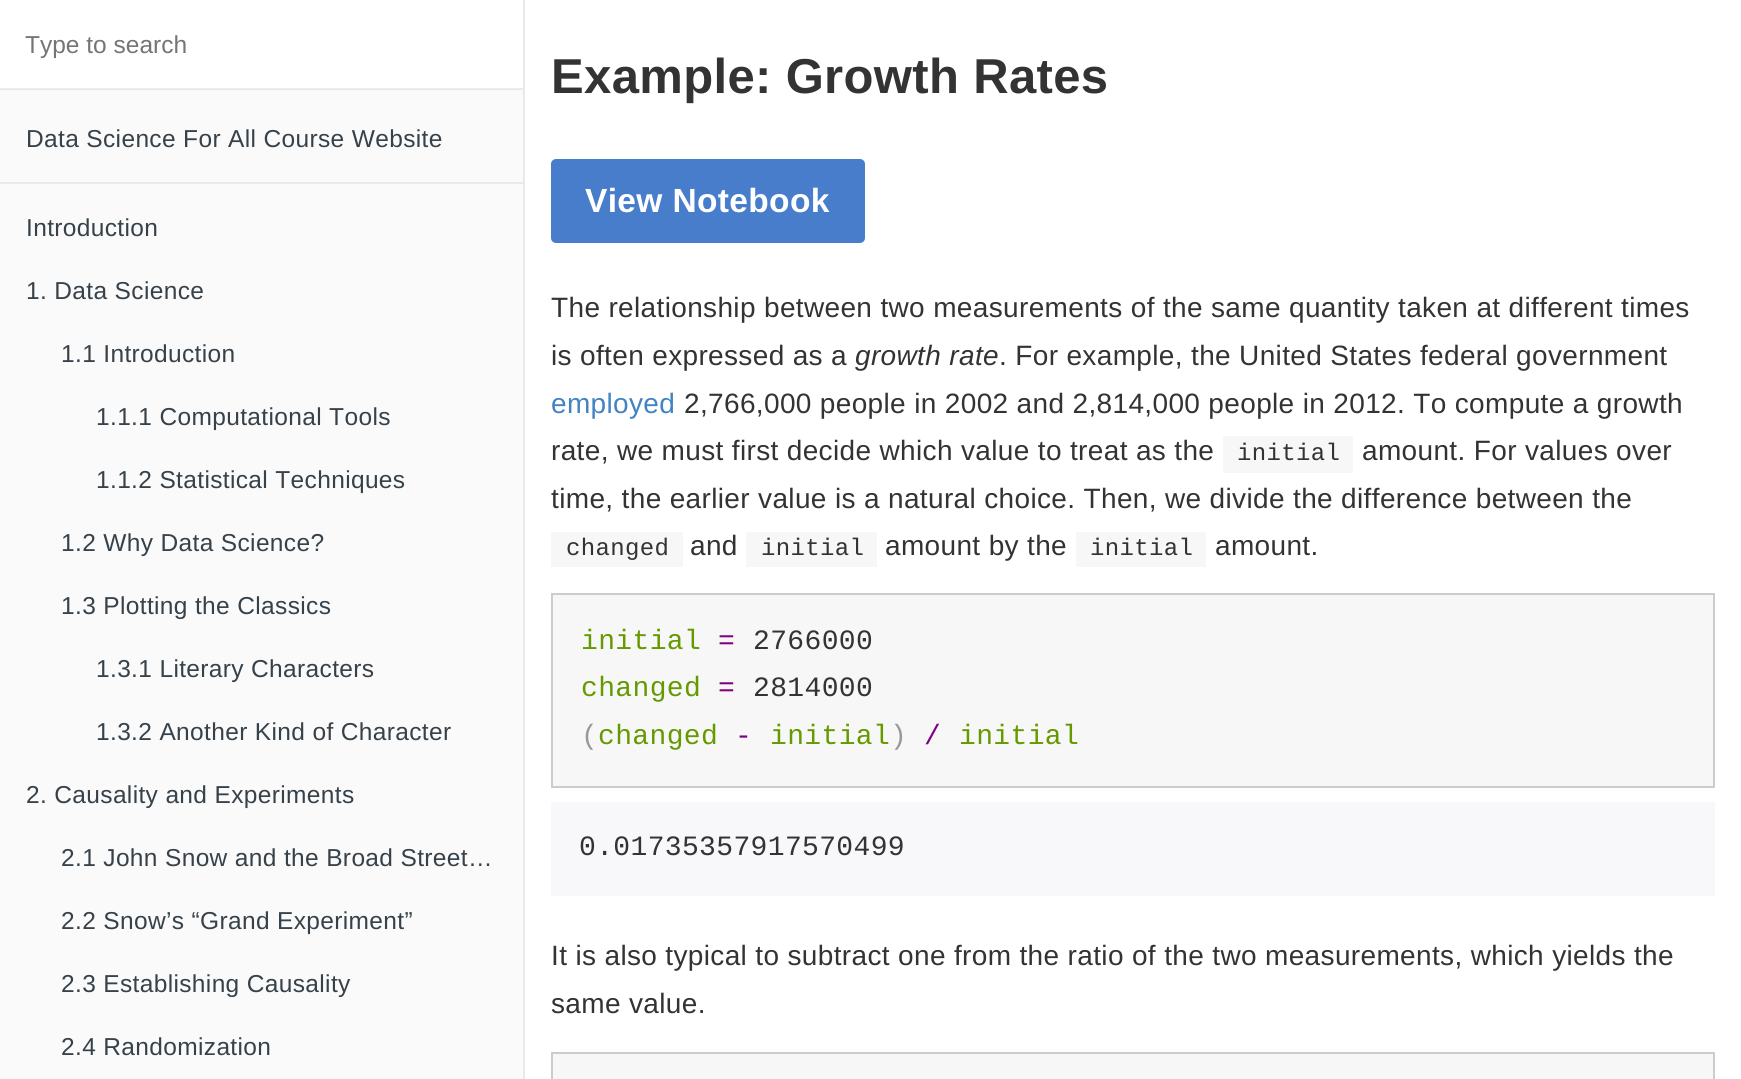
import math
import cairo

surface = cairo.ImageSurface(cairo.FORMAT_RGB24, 1741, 1079)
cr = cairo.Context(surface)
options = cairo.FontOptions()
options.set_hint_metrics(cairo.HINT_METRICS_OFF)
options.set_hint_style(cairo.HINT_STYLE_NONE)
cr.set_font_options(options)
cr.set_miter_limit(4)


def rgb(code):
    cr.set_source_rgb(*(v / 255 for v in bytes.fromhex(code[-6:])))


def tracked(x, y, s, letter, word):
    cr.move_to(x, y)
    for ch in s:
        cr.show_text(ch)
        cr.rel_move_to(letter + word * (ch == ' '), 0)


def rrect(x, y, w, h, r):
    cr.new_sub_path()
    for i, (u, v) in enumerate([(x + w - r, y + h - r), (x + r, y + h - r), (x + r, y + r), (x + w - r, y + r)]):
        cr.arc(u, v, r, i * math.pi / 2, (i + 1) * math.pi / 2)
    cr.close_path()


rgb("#ffffff")
cr.paint()
for x, y, w, h, color in [
    (0, 90, 523, 989, "#fafafa"),
    (0, 89, 523, 1, "#e8e8e8"),
    (523, 0, 2, 1079, "#e9e9e9"),
    (0, 88, 523, 1, "#ededed"),
    (0, 182, 523, 2, "#e9e9e9"),
]:
    rgb(color)
    cr.rectangle(x, y, w, h)
    cr.fill()
rgb("#477dca")
rrect(551, 159, 314, 84, 5)
cr.fill()
for x, y, w, h, color in [
    (1223, 436, 130, 37, "#f7f7f7"),
    (551, 532, 132, 35, "#f7f7f7"),
    (746, 532, 131, 35, "#f7f7f7"),
    (1076, 532, 130, 35, "#f7f7f7"),
]:
    rgb(color)
    cr.rectangle(x, y, w, h)
    cr.fill()
cr.rectangle(552, 594, 1162, 193)
cr.fill_preserve()
rgb("#cccccc")
cr.stroke()
rgb("#f8f8fb")
cr.rectangle(551, 802, 1164, 94)
cr.fill()
rgb("#f7f7f7")
cr.rectangle(552, 1053, 1162, 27)
cr.fill_preserve()
rgb("#cccccc")
cr.stroke()
cr.select_font_face("Liberation Sans")
cr.set_font_size(24.5)
rgb("#757575")
cr.move_to(25, 53)
cr.show_text("Type to search")
rgb("#364149")
for x, y, s in [
    (26, 147, "Data Science For All Course Website"),
    (26, 236, "Introduction"),
    (26, 299, "1. Data Science"),
    (61, 362, "1.1 Introduction"),
    (96, 425, "1.1.1 Computational Tools"),
    (96, 488, "1.1.2 Statistical Techniques"),
    (61, 551, "1.2 Why Data Science?"),
    (61, 614, "1.3 Plotting the Classics"),
    (96, 677, "1.3.1 Literary Characters"),
    (96, 740, "1.3.2 Another Kind of Character"),
    (26, 803, "2. Causality and Experiments"),
    (61, 866, "2.1 John Snow and the Broad Street…"),
    (61, 929, "2.2 Snow’s “Grand Experiment”"),
    (61, 992, "2.3 Establishing Causality"),
    (61, 1055, "2.4 Randomization"),
]:
    tracked(x, y, s, 0.35, 0)
cr.select_font_face("Liberation Sans", cairo.FONT_SLANT_NORMAL, cairo.FONT_WEIGHT_BOLD)
cr.set_font_size(49)
rgb("#333333")
tracked(551, 93, "Example: Growth Rates", 0.35, 0)
cr.set_font_size(33.5)
rgb("#ffffff")
tracked(585, 212, "View Notebook", 0.35, 0)
cr.select_font_face("Liberation Sans")
cr.set_font_size(28)
rgb("#333333")
tracked(551, 317, "The relationship between two measurements of the same quantity taken at different times", 0.35, 0)
tracked(551, 365, "is often expressed as a", 0.35, 0)
cr.select_font_face("Liberation Sans", cairo.FONT_SLANT_ITALIC)
tracked(855, 365, "growth rate", 0.35, 0)
cr.select_font_face("Liberation Sans")
tracked(999, 365, ". For example, the United States federal government", 0.35, 0)
rgb("#4183c4")
tracked(551, 413, "employed", 0.35, 0)
rgb("#333333")
tracked(684, 413, "2,766,000 people in 2002 and 2,814,000 people in 2012. To compute a growth", 0.35, 0)
tracked(551, 460, "rate, we must first decide which value to treat as the", 0.35, 0)
cr.select_font_face("Liberation Mono")
cr.set_font_size(24)
tracked(1237, 460, "initial", 0.35, 0)
cr.select_font_face("Liberation Sans")
cr.set_font_size(28)
tracked(1362, 460, "amount. For values over", 0.35, 0)
tracked(551, 508, "time, the earlier value is a natural choice. Then, we divide the difference between the", 0.35, 0)
cr.select_font_face("Liberation Mono")
cr.set_font_size(24)
tracked(566, 555, "changed", 0.35, 0)
cr.select_font_face("Liberation Sans")
cr.set_font_size(28)
tracked(690, 555, "and", 0.35, 0)
cr.select_font_face("Liberation Mono")
cr.set_font_size(24)
tracked(761, 555, "initial", 0.35, 0)
cr.select_font_face("Liberation Sans")
cr.set_font_size(28)
tracked(885, 555, "amount by the", 0.35, 0)
cr.select_font_face("Liberation Mono")
cr.set_font_size(24)
tracked(1090, 555, "initial", 0.35, 0)
cr.select_font_face("Liberation Sans")
cr.set_font_size(28)
tracked(1215, 555, "amount.", 0.35, 0)
cr.select_font_face("Liberation Mono")
rgb("#669900")
tracked(581, 649, "initial", 0.35, 0)
rgb("#800080")
tracked(718, 649, "=", 0.35, 0)
rgb("#333333")
tracked(753, 649, "2766000", 0.35, 0)
rgb("#669900")
tracked(581, 696, "changed", 0.35, 0)
rgb("#800080")
tracked(718, 696, "=", 0.35, 0)
rgb("#333333")
tracked(753, 696, "2814000", 0.35, 0)
rgb("#999999")
tracked(581, 744, "(", 0.35, 0)
rgb("#669900")
tracked(598, 744, "changed", 0.35, 0)
rgb("#800080")
tracked(735, 744, "-", 0.35, 0)
rgb("#669900")
tracked(770, 744, "initial", 0.35, 0)
rgb("#999999")
tracked(890, 744, ")", 0.35, 0)
rgb("#800080")
tracked(924, 744, "/", 0.35, 0)
rgb("#669900")
tracked(959, 744, "initial", 0.35, 0)
rgb("#333333")
tracked(579, 855, "0.01735357917570499", 0.35, 0)
cr.select_font_face("Liberation Sans")
tracked(551, 965, "It is also typical to subtract one from the ratio of the two measurements, which yields the", 0.35, 0)
tracked(551, 1013, "same value.", 0.35, 0)
surface.write_to_png("page.png")
